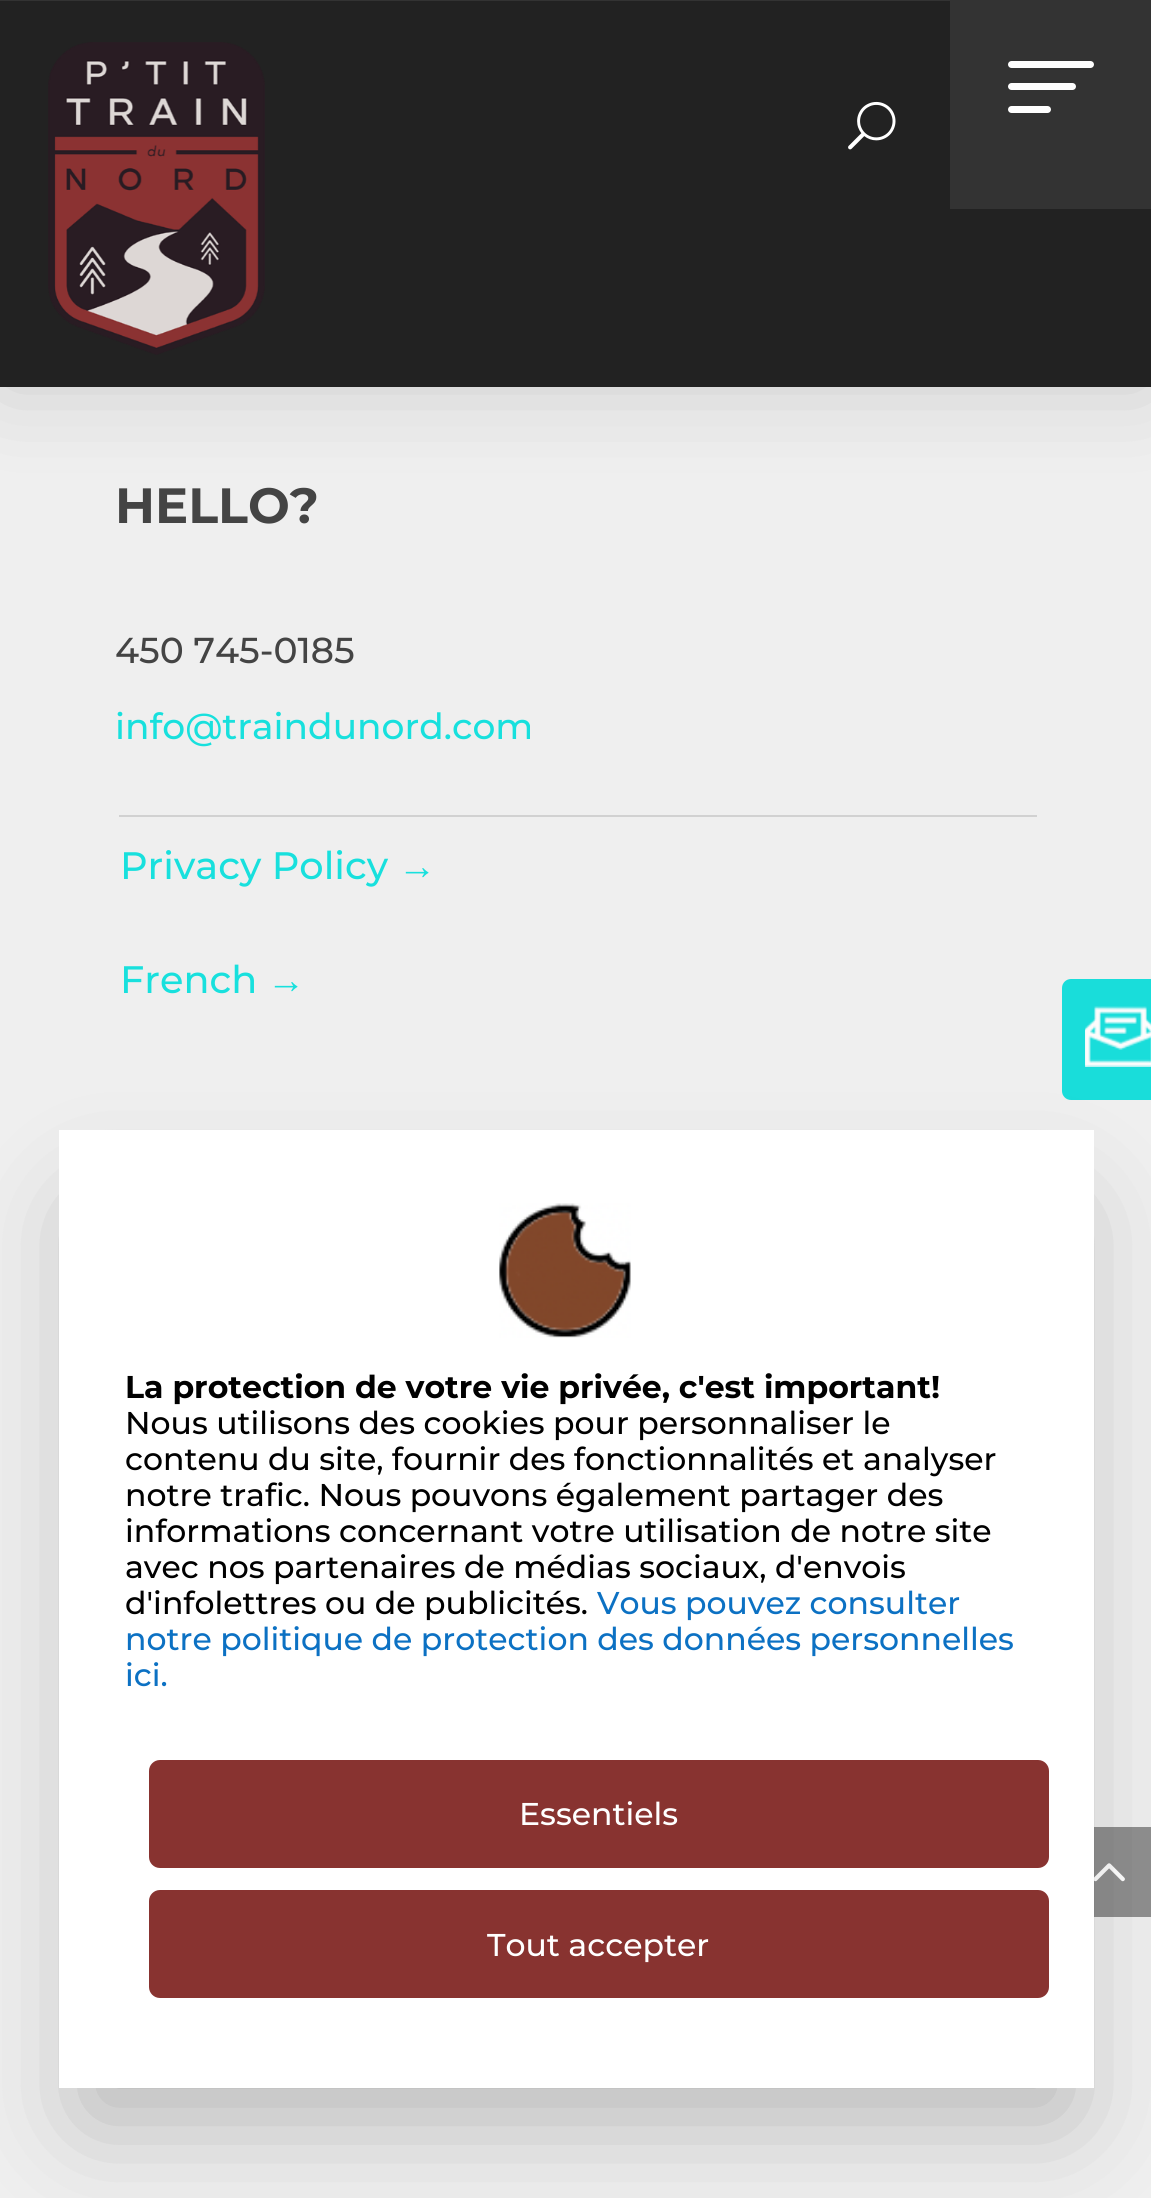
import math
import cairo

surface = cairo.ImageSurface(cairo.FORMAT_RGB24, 1151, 2198)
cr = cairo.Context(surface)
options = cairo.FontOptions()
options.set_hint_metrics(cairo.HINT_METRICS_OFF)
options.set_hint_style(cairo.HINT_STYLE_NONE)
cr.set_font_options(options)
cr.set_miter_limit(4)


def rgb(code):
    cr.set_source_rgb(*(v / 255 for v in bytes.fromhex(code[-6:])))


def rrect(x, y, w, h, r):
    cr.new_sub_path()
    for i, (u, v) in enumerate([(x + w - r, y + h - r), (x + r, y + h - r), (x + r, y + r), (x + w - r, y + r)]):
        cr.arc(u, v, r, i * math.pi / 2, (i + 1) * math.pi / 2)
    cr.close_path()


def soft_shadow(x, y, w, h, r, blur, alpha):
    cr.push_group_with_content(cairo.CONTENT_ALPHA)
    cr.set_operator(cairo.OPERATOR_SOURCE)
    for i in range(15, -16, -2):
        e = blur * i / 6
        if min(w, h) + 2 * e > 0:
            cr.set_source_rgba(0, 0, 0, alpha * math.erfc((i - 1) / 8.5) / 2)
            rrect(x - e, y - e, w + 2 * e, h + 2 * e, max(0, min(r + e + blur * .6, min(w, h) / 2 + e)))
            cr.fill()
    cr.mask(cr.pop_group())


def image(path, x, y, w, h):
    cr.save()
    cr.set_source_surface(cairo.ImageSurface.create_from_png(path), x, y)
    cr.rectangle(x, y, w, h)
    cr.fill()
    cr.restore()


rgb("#efefef")
cr.paint()
rgb("#000000")
soft_shadow(0, 0, 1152, 387, 0, 47, 0.15)
rgb("#222222")
cr.rectangle(0, 1, 1151, 386)
cr.fill()
image("img/1.png", 48, 42, 217, 313)
image("img/2.png", 848, 101, 48, 49)
rgb("#333333")
cr.rectangle(0, 0, 950, 1)
cr.fill()
cr.rectangle(950, 0, 201, 209)
cr.fill()
rgb("#ffffff")
rrect(1008, 61, 86, 7, 3.5)
cr.fill()
rrect(1008, 83, 68, 7, 3.5)
cr.fill()
rrect(1008, 106, 43, 7, 3.5)
cr.fill()
rgb("#d1d1d1")
cr.rectangle(119, 815, 918, 2)
cr.fill()
rgb("#19ddda")
rrect(1062, 979, 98, 121, 9)
cr.fill()
image("img/3.png", 1085, 1006, 66, 61)
rgb("#8f8f8f")
cr.rectangle(1094, 1827, 57, 90)
cr.fill()
image("img/5.png", 1094, 1863, 31, 19)
rgb("#000000")
soft_shadow(86, 1213, 981, 904, 0, 56, 0.25)
rgb("#ffffff")
cr.rectangle(59, 1130, 1035, 958)
cr.fill()
image("img/4.png", 499, 1203, 132, 135)
rgb("#883330")
rrect(149, 1760, 900, 108, 11)
cr.fill()
rrect(149, 1890, 900, 108, 11)
cr.fill()
cr.select_font_face("Montserrat", cairo.FONT_SLANT_NORMAL, cairo.FONT_WEIGHT_BOLD)
cr.set_font_size(49.5)
rgb("#444444")
cr.move_to(115, 523)
cr.show_text("HELLO?")
cr.select_font_face("Montserrat Medium")
cr.set_font_size(36)
cr.move_to(115, 663)
cr.show_text("450 745-0185")
rgb("#18e0dd")
cr.move_to(115, 739)
cr.show_text("info@traindunord.com")
cr.set_font_size(38.25)
cr.move_to(120, 879)
cr.show_text("Privacy Policy")
cr.select_font_face("Liberation Sans")
cr.move_to(398, 879)
cr.show_text("→")
cr.select_font_face("Montserrat Medium")
cr.move_to(120, 993)
cr.show_text("French")
cr.select_font_face("Liberation Sans")
cr.move_to(267, 993)
cr.show_text("→")
cr.select_font_face("Montserrat", cairo.FONT_SLANT_NORMAL, cairo.FONT_WEIGHT_BOLD)
cr.set_font_size(31.5)
rgb("#000000")
cr.move_to(125, 1398)
cr.show_text("La protection de votre vie privée, c'est important!")
cr.select_font_face("Montserrat Medium")
for x, y, s in [
    (125, 1434, "Nous utilisons des cookies pour personnaliser le"),
    (125, 1470, "contenu du site, fournir des fonctionnalités et analyser"),
    (125, 1506, "notre trafic. Nous pouvons également partager des"),
    (125, 1542, "informations concernant votre utilisation de notre site"),
    (125, 1578, "avec nos partenaires de médias sociaux, d'envois"),
    (125, 1614, "d'infolettres ou de publicités."),
]:
    cr.move_to(x, y)
    cr.show_text(s)
rgb("#0c71c3")
for x, y, s in [
    (597, 1614, "Vous pouvez consulter"),
    (125, 1650, "notre politique de protection des données personnelles"),
    (125, 1686, "ici."),
]:
    cr.move_to(x, y)
    cr.show_text(s)
rgb("#ffffff")
cr.move_to(519, 1825)
cr.show_text("Essentiels")
cr.move_to(487, 1956)
cr.show_text("Tout accepter")
surface.write_to_png("page.png")
